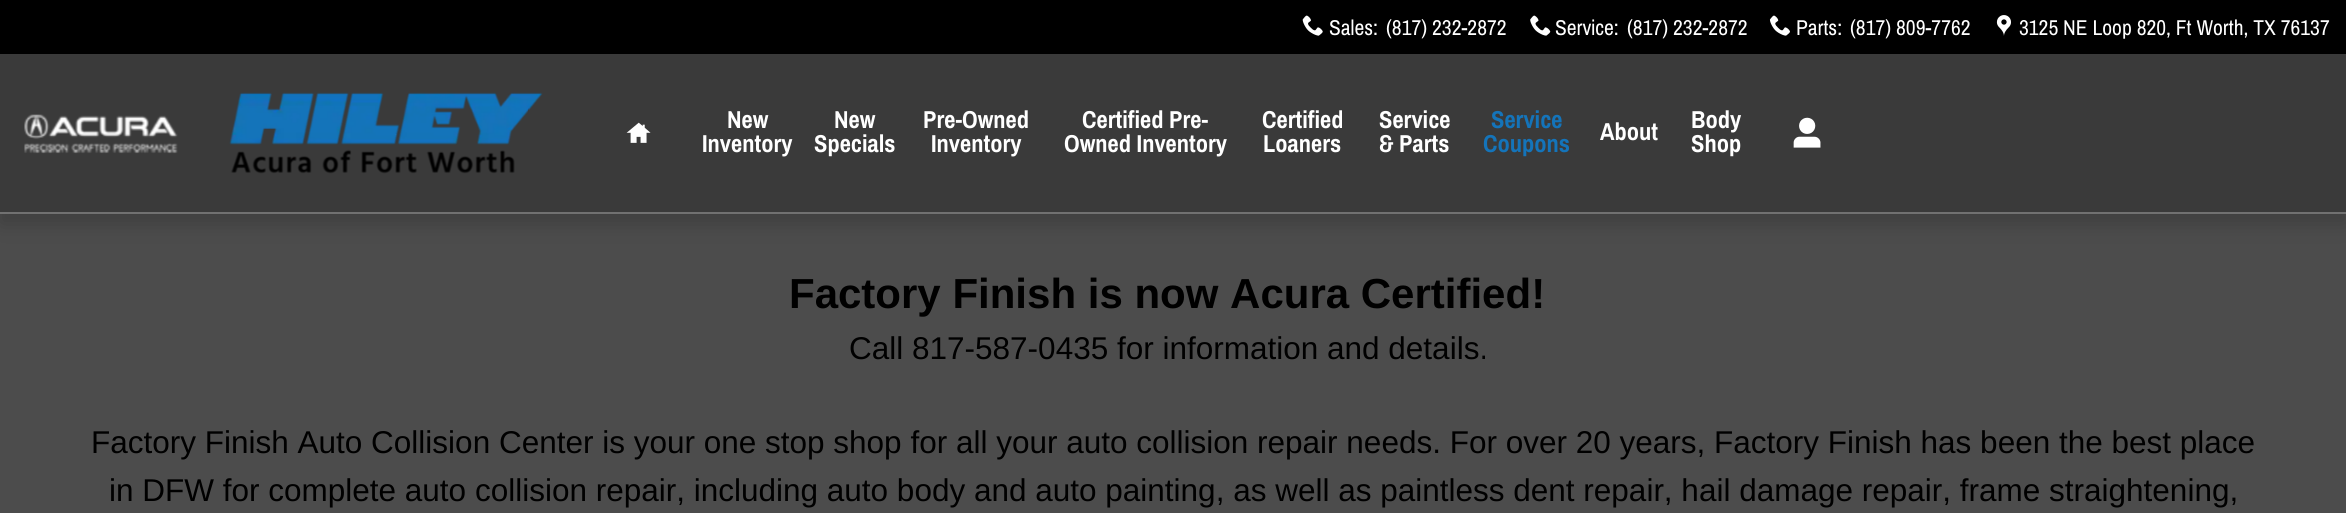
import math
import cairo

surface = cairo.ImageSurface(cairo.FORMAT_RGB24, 2346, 513)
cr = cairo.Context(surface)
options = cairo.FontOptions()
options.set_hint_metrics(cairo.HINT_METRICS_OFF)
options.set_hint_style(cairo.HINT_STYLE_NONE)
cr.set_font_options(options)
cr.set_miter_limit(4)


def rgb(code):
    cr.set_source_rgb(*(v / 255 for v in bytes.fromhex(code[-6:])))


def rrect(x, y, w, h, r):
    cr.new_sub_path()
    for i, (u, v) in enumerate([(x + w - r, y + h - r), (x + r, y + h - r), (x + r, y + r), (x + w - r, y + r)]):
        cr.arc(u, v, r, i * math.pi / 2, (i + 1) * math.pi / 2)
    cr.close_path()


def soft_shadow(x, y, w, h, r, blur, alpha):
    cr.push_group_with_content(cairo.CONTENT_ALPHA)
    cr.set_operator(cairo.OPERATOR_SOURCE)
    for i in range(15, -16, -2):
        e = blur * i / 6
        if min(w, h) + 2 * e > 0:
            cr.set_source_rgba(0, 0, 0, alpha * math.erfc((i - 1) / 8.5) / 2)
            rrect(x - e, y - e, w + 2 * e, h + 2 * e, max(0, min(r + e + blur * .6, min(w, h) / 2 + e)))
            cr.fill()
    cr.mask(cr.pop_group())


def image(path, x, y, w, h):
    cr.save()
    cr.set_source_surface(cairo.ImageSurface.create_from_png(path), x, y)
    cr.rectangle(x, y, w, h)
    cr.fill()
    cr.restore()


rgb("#4c4c4c")
cr.paint()
rgb("#000000")
soft_shadow(0, 11, 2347, 213, 0, 10.5, 0.18)
for x, y, w, h, color in [
    (0, 54, 2346, 158, "#3a3a3a"),
    (0, 212, 2346, 2, "#717171"),
    (0, 0, 2346, 54, "#000000"),
]:
    rgb(color)
    cr.rectangle(x, y, w, h)
    cr.fill()
image("img/1.png", 1302, 15, 21, 21)
image("img/2.png", 1530, 15, 21, 21)
image("img/3.png", 1769, 15, 21, 21)
image("img/4.png", 1996, 15, 15, 21)
image("img/5.png", 24, 114, 154, 40)
image("img/6.png", 229, 92, 314, 82)
image("img/7.png", 626, 122, 25, 21)
image("img/8.png", 1793, 117, 28, 31)
cr.select_font_face("Archivo Narrow")
cr.set_font_size(21.5)
rgb("#ffffff")
for x, y, s in [
    (1329, 35, "Sales:"),
    (1386, 35, "(817) 232-2872"),
    (1555, 35, "Service:"),
    (1627, 35, "(817) 232-2872"),
    (1796, 35, "Parts:"),
    (1850, 35, "(817) 809-7762"),
    (2019, 35, "3125 NE Loop 820, Ft Worth, TX 76137"),
]:
    cr.move_to(x, y)
    cr.show_text(s)
cr.select_font_face("Archivo Narrow", cairo.FONT_SLANT_NORMAL, cairo.FONT_WEIGHT_BOLD)
cr.set_font_size(24.5)
for x, y, s in [
    (727, 128, "New"),
    (702, 152, "Inventory"),
    (834, 128, "New"),
    (814, 152, "Specials"),
    (923, 128, "Pre-Owned"),
    (931, 152, "Inventory"),
    (1082, 128, "Certified Pre-"),
    (1064, 152, "Owned Inventory"),
    (1262, 128, "Certified"),
    (1263, 152, "Loaners"),
    (1379, 128, "Service"),
    (1379, 152, "& Parts"),
]:
    cr.move_to(x, y)
    cr.show_text(s)
rgb("#1474ba")
cr.move_to(1491, 128)
cr.show_text("Service")
cr.move_to(1483, 152)
cr.show_text("Coupons")
rgb("#ffffff")
for x, y, s in [
    (1600, 140, "About"),
    (1691, 128, "Body"),
    (1691, 152, "Shop"),
]:
    cr.move_to(x, y)
    cr.show_text(s)
cr.select_font_face("Liberation Sans", cairo.FONT_SLANT_NORMAL, cairo.FONT_WEIGHT_BOLD)
cr.set_font_size(42)
rgb("#000000")
cr.move_to(789, 308)
cr.show_text("Factory Finish is now Acura Certified!")
cr.select_font_face("Liberation Sans")
cr.set_font_size(31.5)
for x, y, s in [
    (849, 359, "Call 817-587-0435 for information and details."),
    (91, 453, "Factory Finish Auto Collision Center is your one stop shop for all your auto collision repair needs. For over 20 years, Factory Finish has been the best place"),
    (109, 501, "in DFW for complete auto collision repair, including auto body and auto painting, as well as paintless dent repair, hail damage repair, frame straightening,"),
]:
    cr.move_to(x, y)
    cr.show_text(s)
surface.write_to_png("page.png")
